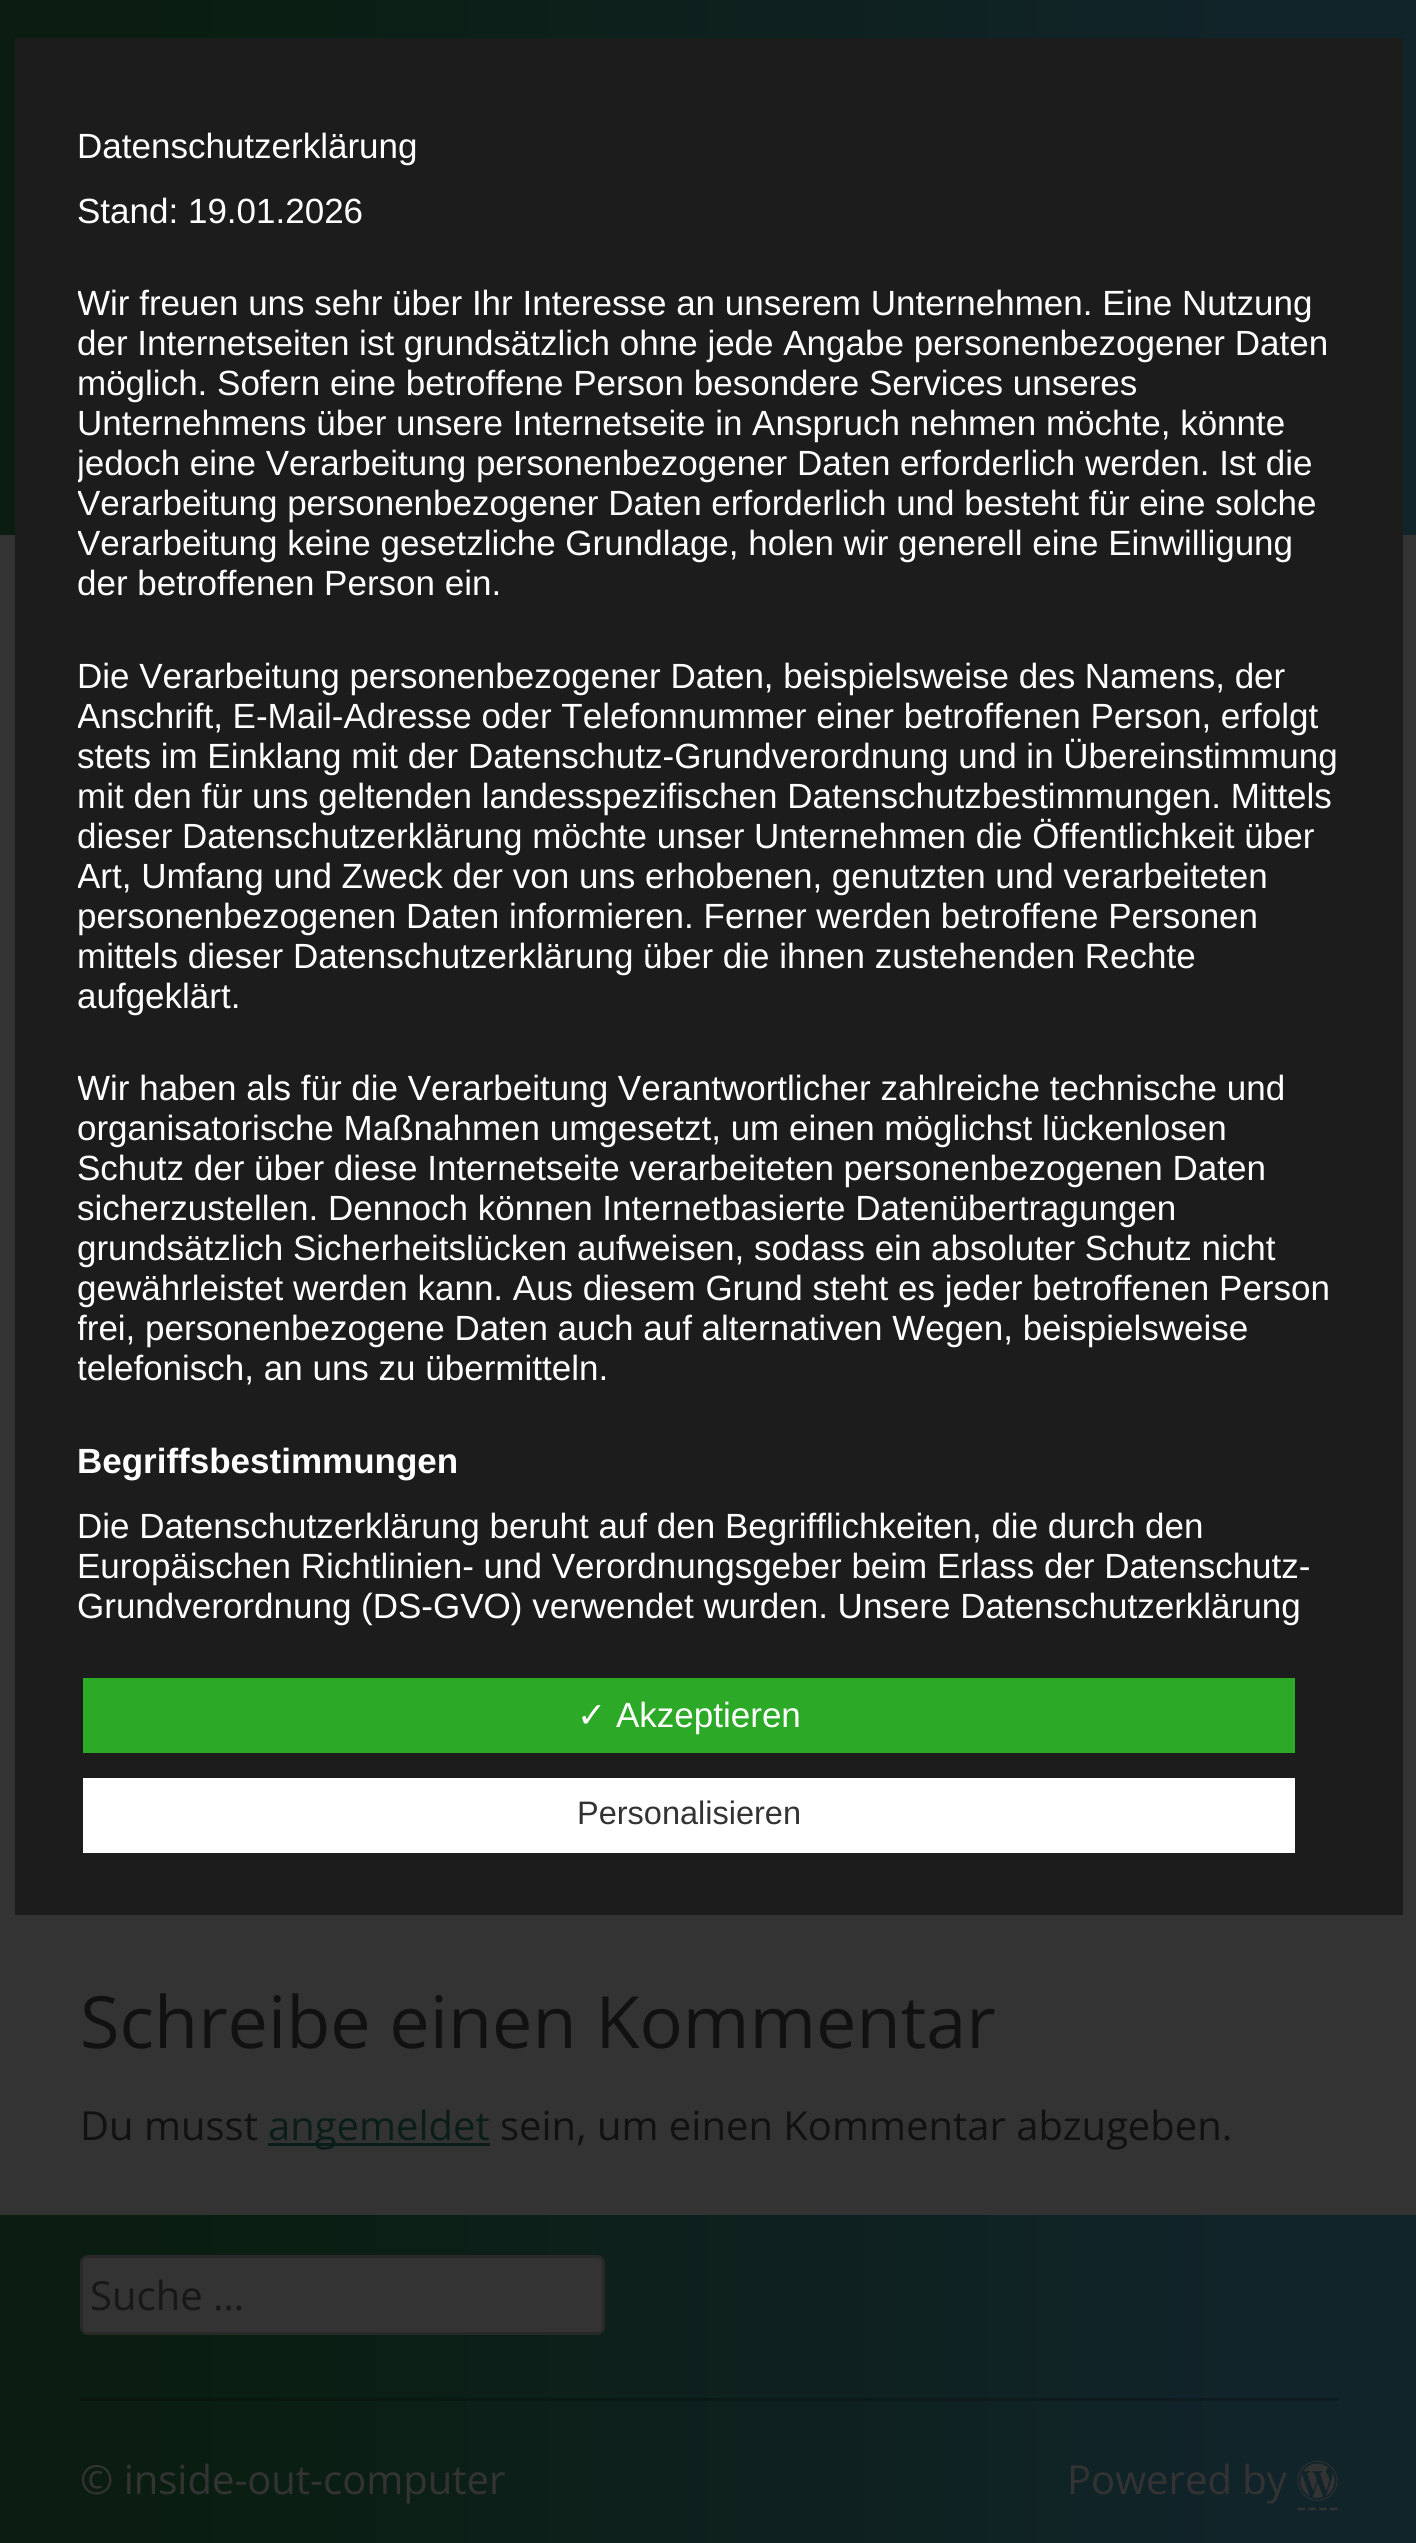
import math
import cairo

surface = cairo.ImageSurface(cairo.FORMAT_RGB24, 1416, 2543)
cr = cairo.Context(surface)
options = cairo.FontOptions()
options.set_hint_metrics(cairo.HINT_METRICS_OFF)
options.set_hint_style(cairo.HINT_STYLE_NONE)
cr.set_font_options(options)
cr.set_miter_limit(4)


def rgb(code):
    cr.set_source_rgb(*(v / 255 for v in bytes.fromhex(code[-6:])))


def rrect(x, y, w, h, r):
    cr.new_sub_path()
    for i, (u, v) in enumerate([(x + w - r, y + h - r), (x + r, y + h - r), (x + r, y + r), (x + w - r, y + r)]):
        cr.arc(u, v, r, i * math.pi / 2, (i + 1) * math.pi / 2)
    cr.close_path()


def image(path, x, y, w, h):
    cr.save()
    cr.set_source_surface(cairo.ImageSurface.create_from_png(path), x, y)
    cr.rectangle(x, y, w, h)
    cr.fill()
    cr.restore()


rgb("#333333")
cr.paint()
gradient = cairo.LinearGradient(0, 266, 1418, 266)
gradient.add_color_stop_rgba(0.1, 0.039, 0.114, 0.063, 1)
gradient.add_color_stop_rgba(0.9, 0.067, 0.141, 0.165, 1)
cr.set_source(gradient)
cr.rectangle(0, 0, 1416, 535)
cr.fill()
for x, y, w, h, color in [
    (15, 38, 1388, 1877, "#1d1c1c"),
    (83, 1678, 1212, 75, "#2caa27"),
    (83, 1778, 1212, 75, "#ffffff"),
    (268, 2143, 222, 3, "#0a1d19"),
]:
    rgb(color)
    cr.rectangle(x, y, w, h)
    cr.fill()
gradient = cairo.LinearGradient(0, 2383, 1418, 2383)
gradient.add_color_stop_rgba(0.1, 0.039, 0.114, 0.063, 1)
gradient.add_color_stop_rgba(0.9, 0.067, 0.141, 0.165, 1)
cr.set_source(gradient)
cr.rectangle(0, 2215, 1416, 328)
cr.fill()
gradient = cairo.LinearGradient(0, 2383, 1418, 2383)
gradient.add_color_stop_rgba(0.1, 0.031, 0.086, 0.047, 1)
gradient.add_color_stop_rgba(0.9, 0.051, 0.11, 0.129, 1)
cr.set_source(gradient)
cr.rectangle(80, 2398, 1258, 3)
cr.fill()
rgb("#333333")
rrect(81.5, 2256.5, 522, 77, 6.5)
cr.fill_preserve()
rgb("#292929")
cr.set_line_width(3)
cr.stroke()
cr.new_path()
cr.move_to(1297.5, 2509)
cr.line_to(1337.5, 2509)
rgb("#333333")
cr.set_line_width(2.5)
cr.set_dash([7.5, 3.33])
cr.stroke()
image("img/1.png", 1297, 2460, 41, 41)
cr.select_font_face("Liberation Sans")
cr.set_font_size(35)
rgb("#ffffff")
cr.move_to(77, 158)
cr.show_text("Datenschutzerklärung")
cr.move_to(77, 223)
cr.show_text("Stand: 19.01.2026")
cr.save()
cr.rectangle(78, 100, 1325, 1528)
cr.clip()
cr.move_to(77, 315)
cr.show_text("Wir freuen uns sehr über Ihr Interesse an unserem Unternehmen. Eine Nutzung")
cr.restore()
for x, y, s in [
    (77, 355, "der Internetseiten ist grundsätzlich ohne jede Angabe personenbezogener Daten"),
    (77, 395, "möglich. Sofern eine betroffene Person besondere Services unseres"),
    (77, 435, "Unternehmens über unsere Internetseite in Anspruch nehmen möchte, könnte"),
]:
    cr.move_to(x, y)
    cr.show_text(s)
cr.save()
cr.rectangle(78, 100, 1325, 1528)
cr.clip()
for x, y, s in [
    (77, 475, "jedoch eine Verarbeitung personenbezogener Daten erforderlich werden. Ist die"),
    (77, 515, "Verarbeitung personenbezogener Daten erforderlich und besteht für eine solche"),
    (77, 555, "Verarbeitung keine gesetzliche Grundlage, holen wir generell eine Einwilligung"),
]:
    cr.move_to(x, y)
    cr.show_text(s)
cr.restore()
cr.move_to(77, 595)
cr.show_text("der betroffenen Person ein.")
cr.move_to(77, 688)
cr.show_text("Die Verarbeitung personenbezogener Daten, beispielsweise des Namens, der")
cr.save()
cr.rectangle(78, 100, 1325, 1528)
cr.clip()
cr.move_to(77, 728)
cr.show_text("Anschrift, E-Mail-Adresse oder Telefonnummer einer betroffenen Person, erfolgt")
cr.restore()
for x, y, s in [
    (77, 768, "stets im Einklang mit der Datenschutz-Grundverordnung und in Übereinstimmung"),
    (77, 808, "mit den für uns geltenden landesspezifischen Datenschutzbestimmungen. Mittels"),
    (77, 848, "dieser Datenschutzerklärung möchte unser Unternehmen die Öffentlichkeit über"),
]:
    cr.move_to(x, y)
    cr.show_text(s)
cr.save()
cr.rectangle(78, 100, 1325, 1528)
cr.clip()
cr.move_to(77, 888)
cr.show_text("Art, Umfang und Zweck der von uns erhobenen, genutzten und verarbeiteten")
cr.restore()
for x, y, s in [
    (77, 928, "personenbezogenen Daten informieren. Ferner werden betroffene Personen"),
    (77, 968, "mittels dieser Datenschutzerklärung über die ihnen zustehenden Rechte"),
    (77, 1008, "aufgeklärt."),
]:
    cr.move_to(x, y)
    cr.show_text(s)
cr.save()
cr.rectangle(78, 100, 1325, 1528)
cr.clip()
cr.move_to(77, 1100)
cr.show_text("Wir haben als für die Verarbeitung Verantwortlicher zahlreiche technische und")
cr.restore()
for x, y, s in [
    (77, 1140, "organisatorische Maßnahmen umgesetzt, um einen möglichst lückenlosen"),
    (77, 1180, "Schutz der über diese Internetseite verarbeiteten personenbezogenen Daten"),
    (77, 1220, "sicherzustellen. Dennoch können Internetbasierte Datenübertragungen"),
    (77, 1260, "grundsätzlich Sicherheitslücken aufweisen, sodass ein absoluter Schutz nicht"),
    (77, 1300, "gewährleistet werden kann. Aus diesem Grund steht es jeder betroffenen Person"),
]:
    cr.move_to(x, y)
    cr.show_text(s)
cr.save()
cr.rectangle(78, 100, 1325, 1528)
cr.clip()
cr.move_to(77, 1340)
cr.show_text("frei, personenbezogene Daten auch auf alternativen Wegen, beispielsweise")
cr.move_to(77, 1380)
cr.show_text("telefonisch, an uns zu übermitteln.")
cr.restore()
cr.select_font_face("Liberation Sans", cairo.FONT_SLANT_NORMAL, cairo.FONT_WEIGHT_BOLD)
cr.move_to(77, 1473)
cr.show_text("Begriffsbestimmungen")
cr.select_font_face("Liberation Sans")
for x, y, s in [
    (77, 1538, "Die Datenschutzerklärung beruht auf den Begrifflichkeiten, die durch den"),
    (77, 1578, "Europäischen Richtlinien- und Verordnungsgeber beim Erlass der Datenschutz-"),
    (77, 1618, "Grundverordnung (DS-GVO) verwendet wurden. Unsere Datenschutzerklärung"),
]:
    cr.move_to(x, y)
    cr.show_text(s)
cr.select_font_face("DejaVu Sans")
cr.move_to(577, 1727)
cr.show_text("✓")
cr.select_font_face("Liberation Sans")
cr.move_to(616, 1727)
cr.show_text("Akzeptieren")
cr.set_font_size(32.5)
rgb("#333333")
cr.move_to(577, 1824)
cr.show_text("Personalisieren")
cr.select_font_face("Open Sans")
cr.set_font_size(72)
rgb("#111111")
cr.move_to(80, 2048)
cr.show_text("Schreibe einen Kommentar")
cr.set_font_size(40)
cr.move_to(80, 2140)
cr.show_text("Du musst")
rgb("#0a1d19")
cr.move_to(268, 2140)
cr.show_text("angemeldet")
rgb("#111111")
cr.move_to(500, 2140)
cr.show_text("sein, um einen Kommentar abzugeben.")
rgb("#171717")
cr.move_to(90, 2310)
cr.show_text("Suche …")
rgb("#333333")
cr.move_to(80, 2494)
cr.show_text("© inside-out-computer")
cr.move_to(1067, 2494)
cr.show_text("Powered by")
surface.write_to_png("page.png")
